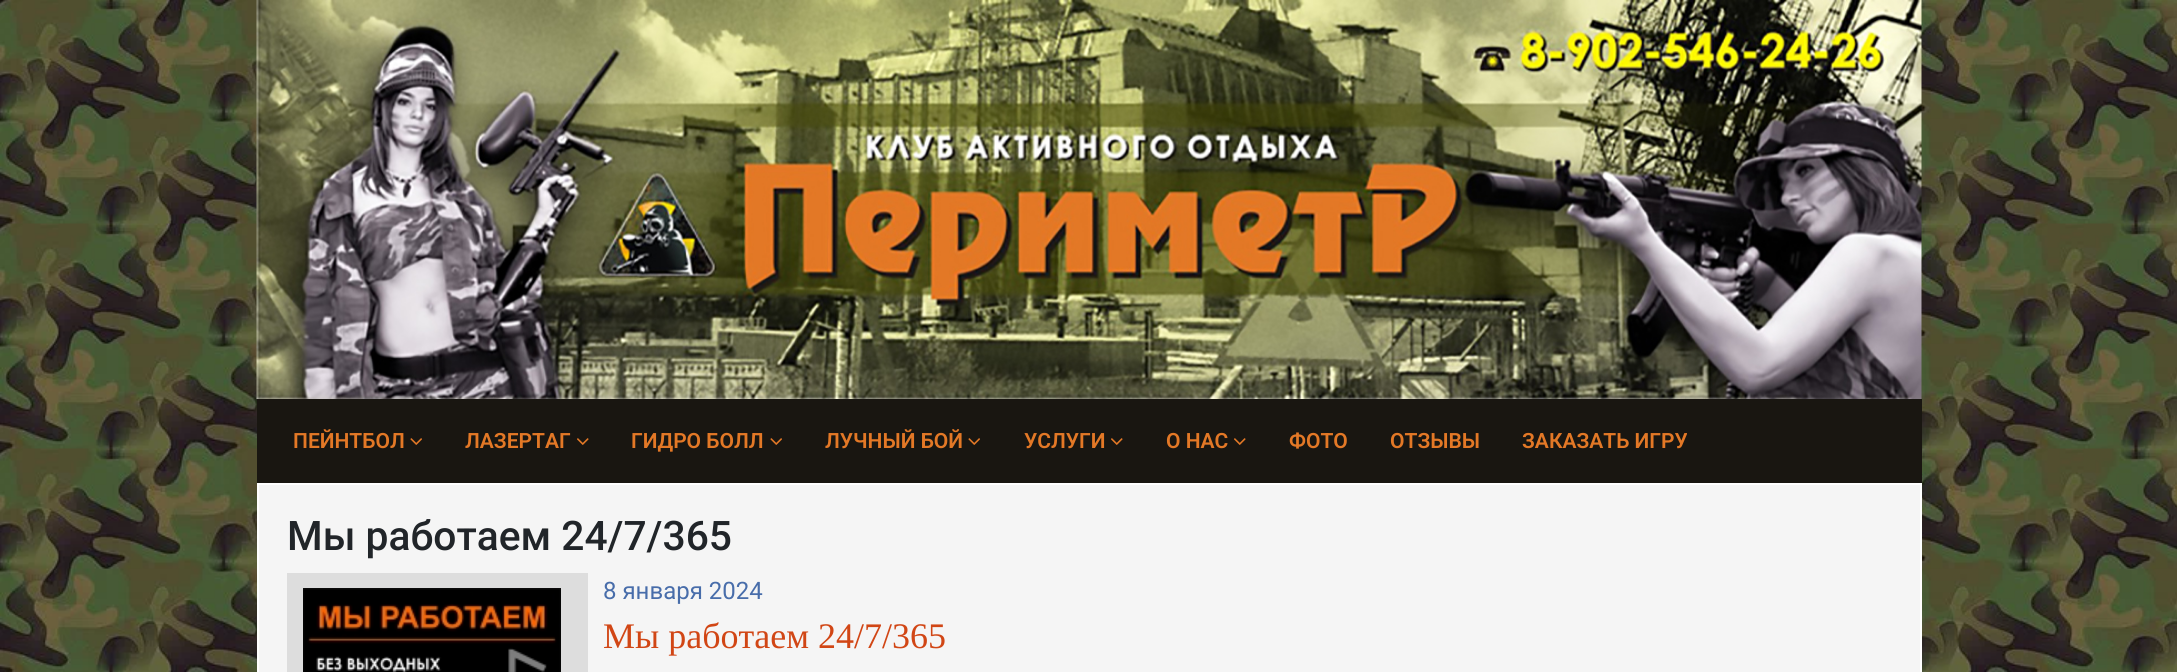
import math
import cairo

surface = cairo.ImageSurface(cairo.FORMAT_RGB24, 2177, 672)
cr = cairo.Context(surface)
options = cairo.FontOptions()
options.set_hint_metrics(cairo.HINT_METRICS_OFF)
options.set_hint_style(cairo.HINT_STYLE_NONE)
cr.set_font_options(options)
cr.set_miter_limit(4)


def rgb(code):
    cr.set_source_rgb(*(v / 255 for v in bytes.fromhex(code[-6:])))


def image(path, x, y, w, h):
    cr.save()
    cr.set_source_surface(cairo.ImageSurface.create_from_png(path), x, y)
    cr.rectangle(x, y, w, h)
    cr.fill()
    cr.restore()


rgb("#ffffff")
cr.paint()
image("img/1.png", 0, 0, 2177, 672)
image("img/2.png", 256, 0, 1666, 399)
rgb("#191611")
cr.rectangle(257, 399, 1665, 84)
cr.fill()
image("img/3.png", 410, 438, 12, 7)
image("img/4.png", 577, 438, 12, 7)
image("img/3.png", 770, 438, 12, 7)
image("img/3.png", 968, 438, 12, 7)
image("img/4.png", 1111, 438, 12, 7)
image("img/4.png", 1234, 438, 12, 7)
rgb("#f5f5f5")
cr.rectangle(258, 484, 1663, 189)
cr.fill_preserve()
rgb("#ffffff")
cr.stroke()
rgb("#dddddd")
cr.rectangle(287, 573, 301, 99)
cr.fill()
image("img/5.png", 303, 588, 258, 84)
cr.select_font_face("Roboto SemiBold")
cr.set_font_size(21)
rgb("#e37826")
for x, y, s in [
    (293, 448, "ПЕЙНТБОЛ"),
    (465, 448, "ЛАЗЕРТАГ"),
    (631, 448, "ГИДРО БОЛЛ"),
    (825, 448, "ЛУЧНЫЙ БОЙ"),
    (1024, 448, "УСЛУГИ"),
    (1166, 448, "О НАС"),
    (1289, 448, "ФОТО"),
    (1390, 448, "ОТЗЫВЫ"),
    (1522, 448, "ЗАКАЗАТЬ ИГРУ"),
]:
    cr.move_to(x, y)
    cr.show_text(s)
cr.select_font_face("Roboto Medium")
cr.set_font_size(40.75)
rgb("#212529")
cr.move_to(287, 550)
cr.show_text("Мы работаем 24/7/365")
cr.select_font_face("Roboto")
cr.set_font_size(24)
rgb("#486daa")
cr.move_to(603, 599)
cr.show_text("8 января 2024")
cr.select_font_face("Liberation Serif")
cr.set_font_size(36)
rgb("#d14615")
cr.move_to(603, 648)
cr.show_text("Мы работаем 24/7/365")
surface.write_to_png("page.png")
